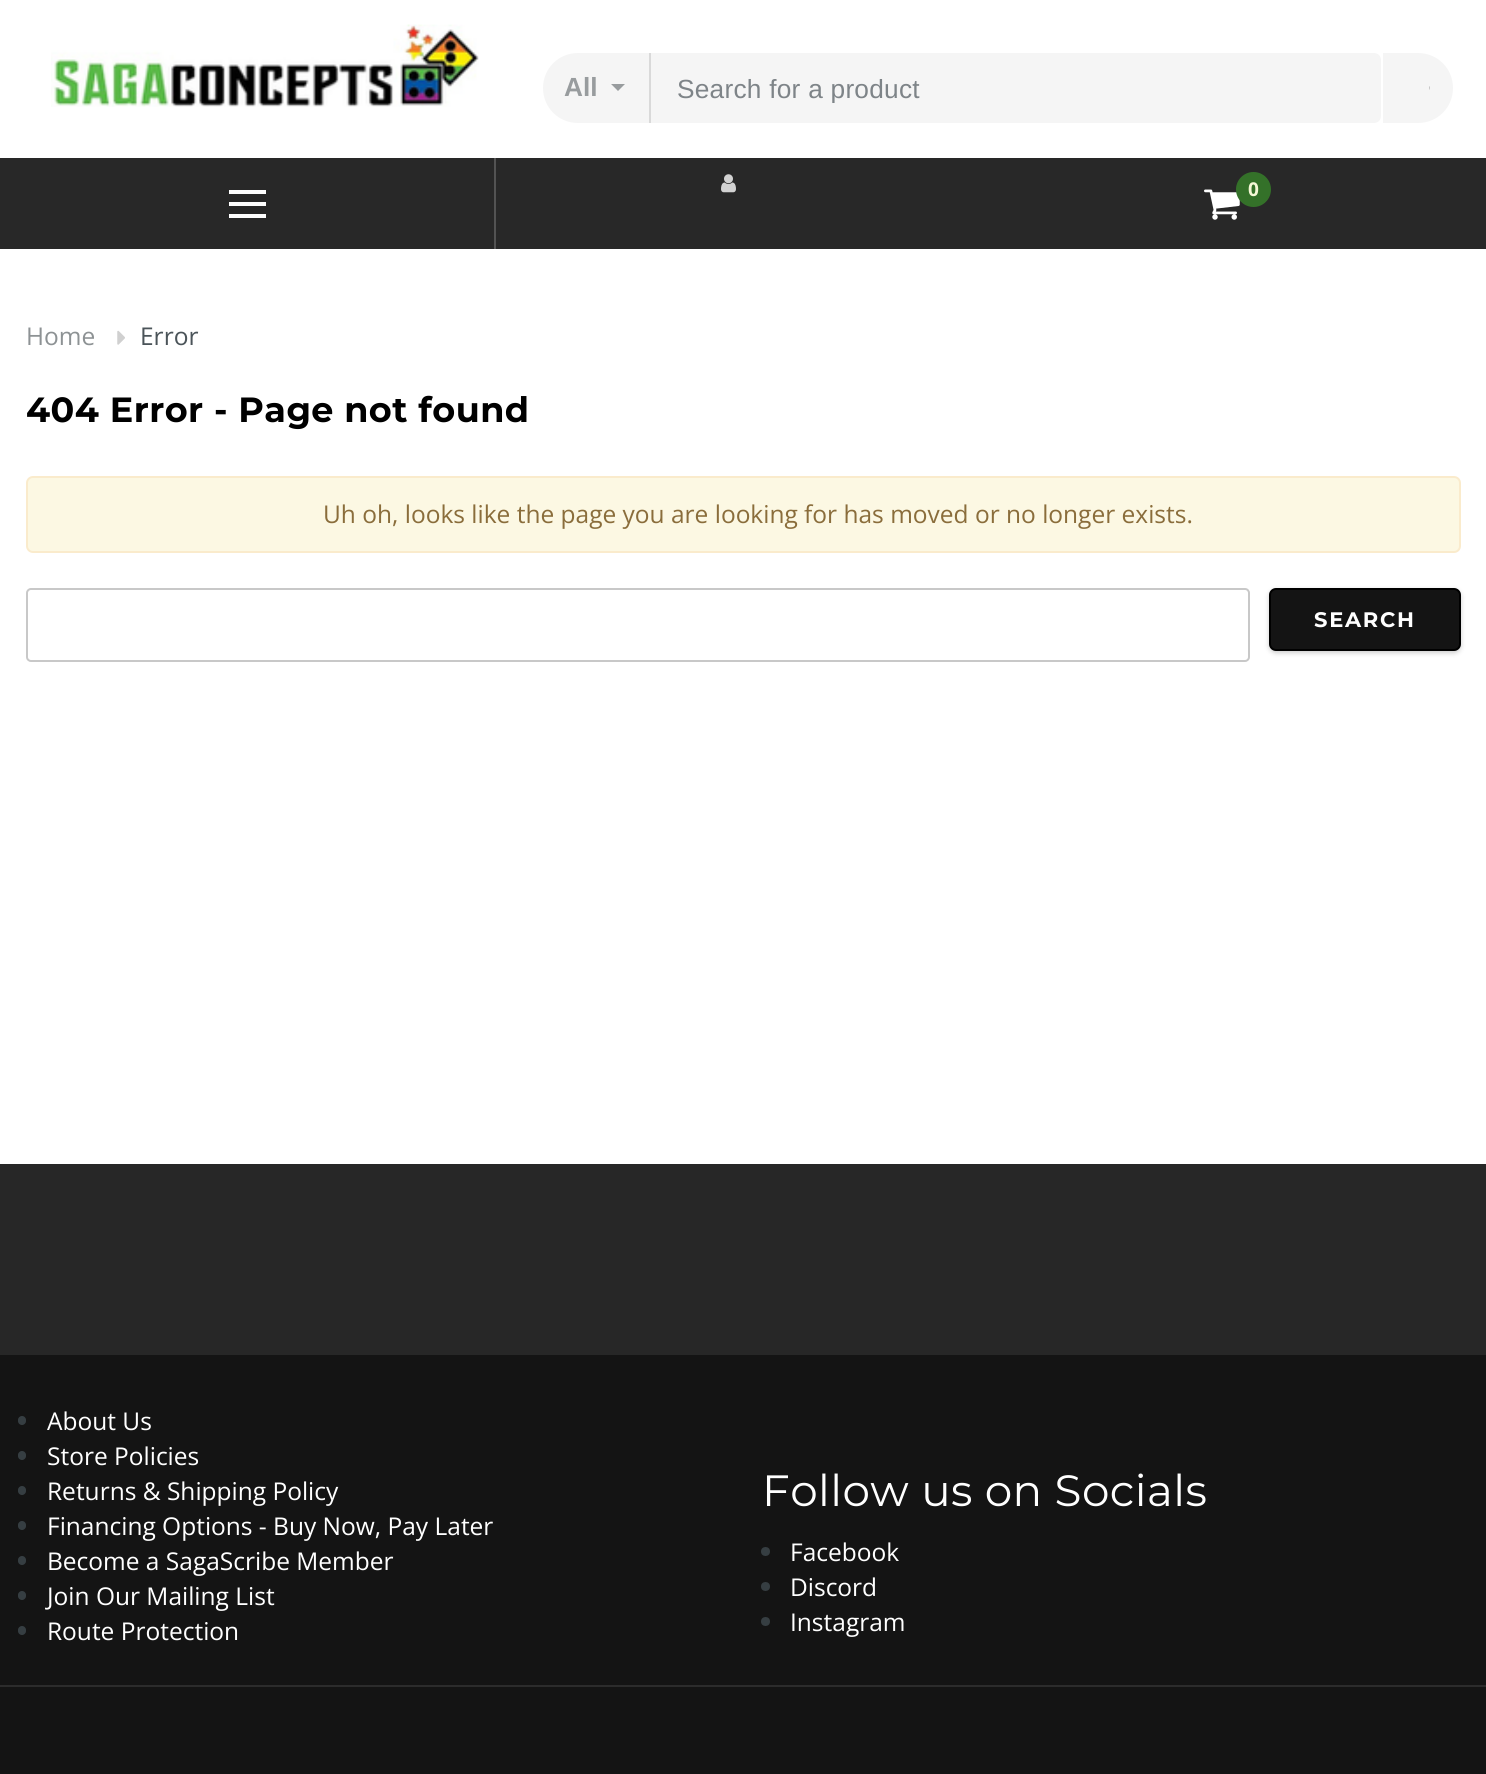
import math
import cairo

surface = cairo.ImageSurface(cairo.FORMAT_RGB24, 1486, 1774)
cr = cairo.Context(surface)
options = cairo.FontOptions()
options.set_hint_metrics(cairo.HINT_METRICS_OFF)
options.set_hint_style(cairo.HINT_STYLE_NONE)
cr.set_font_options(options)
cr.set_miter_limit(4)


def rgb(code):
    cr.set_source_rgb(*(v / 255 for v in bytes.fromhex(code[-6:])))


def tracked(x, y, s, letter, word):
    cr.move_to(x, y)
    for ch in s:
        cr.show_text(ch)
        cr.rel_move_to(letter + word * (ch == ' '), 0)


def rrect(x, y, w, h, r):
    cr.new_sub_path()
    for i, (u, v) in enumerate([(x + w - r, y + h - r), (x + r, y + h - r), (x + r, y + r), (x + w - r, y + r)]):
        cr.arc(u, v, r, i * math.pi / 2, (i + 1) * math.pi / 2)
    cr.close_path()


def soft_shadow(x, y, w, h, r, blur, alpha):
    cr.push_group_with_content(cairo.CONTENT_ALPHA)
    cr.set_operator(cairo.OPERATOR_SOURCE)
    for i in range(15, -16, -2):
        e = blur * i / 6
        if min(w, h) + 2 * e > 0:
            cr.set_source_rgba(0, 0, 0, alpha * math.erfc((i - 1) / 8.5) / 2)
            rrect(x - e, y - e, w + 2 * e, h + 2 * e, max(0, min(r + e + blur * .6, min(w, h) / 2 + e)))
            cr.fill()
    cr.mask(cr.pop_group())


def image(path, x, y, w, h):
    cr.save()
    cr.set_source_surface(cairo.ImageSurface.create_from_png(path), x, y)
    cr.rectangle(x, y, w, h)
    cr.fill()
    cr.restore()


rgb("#ffffff")
cr.paint()
image("img/1.png", 51, 24, 428, 83)
rgb("#f5f5f5")
cr.new_path()
cr.move_to(578, 53)
cr.line_to(651, 53)
cr.line_to(651, 123)
cr.line_to(578, 123)
cr.curve_to(558.5, 123, 543, 107.5, 543, 88)
cr.curve_to(543, 68.5, 558.5, 53, 578, 53)
cr.close_path()
cr.fill()
rgb("#d9d9d9")
cr.rectangle(649, 53, 2, 70)
cr.fill()
rgb("#989c9e")
cr.new_path()
cr.move_to(611, 84)
cr.line_to(625, 84)
cr.line_to(618, 91)
cr.close_path()
cr.fill()
rgb("#f5f5f5")
cr.new_path()
cr.move_to(651, 53)
cr.line_to(1374, 53)
cr.curve_to(1378, 53, 1381, 56, 1381, 60)
cr.line_to(1381, 116)
cr.curve_to(1381, 120, 1378, 123, 1374, 123)
cr.line_to(651, 123)
cr.close_path()
cr.fill()
cr.new_path()
cr.move_to(1383, 53)
cr.line_to(1418, 53)
cr.curve_to(1437.5, 53, 1453, 68.5, 1453, 88)
cr.curve_to(1453, 107.5, 1437.5, 123, 1418, 123)
cr.line_to(1383, 123)
cr.close_path()
cr.fill()
image("img/2.png", 1429, 86, 1, 4)
for x, y, w, h, color in [
    (0, 158, 1486, 91, "#282828"),
    (494, 158, 2, 91, "#535353"),
    (229, 190, 37, 4, "#ffffff"),
    (229, 214, 37, 4, "#ffffff"),
    (229, 202, 37, 4, "#ffffff"),
]:
    rgb(color)
    cr.rectangle(x, y, w, h)
    cr.fill()
image("img/3.png", 721, 174, 15, 19)
image("img/4.png", 1204, 189, 36, 31)
rgb("#347129")
cr.arc(1253.5, 189.5, 17.5, 0, 2 * math.pi)
cr.fill()
image("img/5.png", 117, 330, 8, 15)
rgb("#fcf8e3")
rrect(27, 477, 1433, 75, 6)
cr.fill_preserve()
rgb("#faebcc")
cr.stroke()
rrect(27, 589, 1222, 72, 4)
rgb("#c8c8c8")
cr.stroke()
rgb("#000000")
soft_shadow(1269, 590, 192, 63, 7, 2.5, 0.2)
rgb("#141414")
rrect(1270, 589, 190, 61, 6)
cr.fill_preserve()
rgb("#000000")
cr.stroke()
rgb("#272727")
cr.rectangle(0, 1164, 1486, 191)
cr.fill()
rgb("#141414")
cr.rectangle(0, 1355, 1486, 419)
cr.fill()
rgb("#363e42")
rrect(18, 1416, 8, 9, 4)
cr.fill()
rrect(18, 1451, 8, 9, 4)
cr.fill()
rrect(18, 1486, 8, 9, 4)
cr.fill()
rrect(18, 1521, 8, 9, 4)
cr.fill()
rrect(18, 1556, 8, 9, 4)
cr.fill()
rrect(18, 1591, 8, 9, 4)
cr.fill()
rrect(18, 1626, 8, 9, 4)
cr.fill()
cr.arc(765.5, 1551.5, 4.5, 0, 2 * math.pi)
cr.fill()
cr.arc(765.5, 1586.5, 4.5, 0, 2 * math.pi)
cr.fill()
cr.arc(765.5, 1621.5, 4.5, 0, 2 * math.pi)
cr.fill()
rgb("#2c2c2c")
cr.rectangle(0, 1685, 1486, 2)
cr.fill()
cr.select_font_face("Arimo", cairo.FONT_SLANT_NORMAL, cairo.FONT_WEIGHT_BOLD)
cr.set_font_size(26.25)
rgb("#989c9e")
cr.move_to(564, 96)
cr.show_text("All")
cr.save()
cr.rectangle(677, 74, 678, 29)
cr.clip()
cr.select_font_face("Arimo")
rgb("#7e8488")
tracked(677, 98, "Search for a product", 0.25, 0)
cr.restore()
cr.select_font_face("Open Sans", cairo.FONT_SLANT_NORMAL, cairo.FONT_WEIGHT_BOLD)
cr.set_font_size(19)
rgb("#f5f8d6")
cr.move_to(1248, 196)
cr.show_text("0")
cr.select_font_face("Open Sans")
cr.set_font_size(24.5)
rgb("#8d9294")
cr.move_to(26, 345)
cr.show_text("Home")
rgb("#4b5459")
cr.move_to(140, 345)
cr.show_text("Error")
cr.select_font_face("Montserrat", cairo.FONT_SLANT_NORMAL, cairo.FONT_WEIGHT_BOLD)
cr.set_font_size(35)
rgb("#000000")
tracked(26, 422, "404 Error - Page not found", 0.45, 0)
cr.select_font_face("Open Sans")
cr.set_font_size(24.5)
rgb("#8a6d3b")
cr.move_to(323, 523)
cr.show_text("Uh oh, looks like the page you are looking for has moved or no longer exists.")
cr.select_font_face("Montserrat", cairo.FONT_SLANT_NORMAL, cairo.FONT_WEIGHT_BOLD)
cr.set_font_size(21)
rgb("#ffffff")
tracked(1314, 627, "SEARCH", 1.75, 0)
cr.select_font_face("Open Sans")
cr.set_font_size(24.5)
for x, y, s in [
    (47, 1430, "About Us"),
    (47, 1465, "Store Policies"),
    (47, 1500, "Returns & Shipping Policy"),
    (47, 1535, "Financing Options - Buy Now, Pay Later"),
    (47, 1570, "Become a SagaScribe Member"),
    (47, 1605, "Join Our Mailing List"),
    (47, 1640, "Route Protection"),
]:
    cr.move_to(x, y)
    cr.show_text(s)
cr.select_font_face("Montserrat")
cr.set_font_size(43.75)
tracked(762, 1506, "Follow us on Socials", 0.45, 0)
cr.select_font_face("Open Sans")
cr.set_font_size(24.5)
for x, y, s in [
    (790, 1561, "Facebook"),
    (790, 1596, "Discord"),
    (790, 1631, "Instagram"),
]:
    cr.move_to(x, y)
    cr.show_text(s)
surface.write_to_png("page.png")
